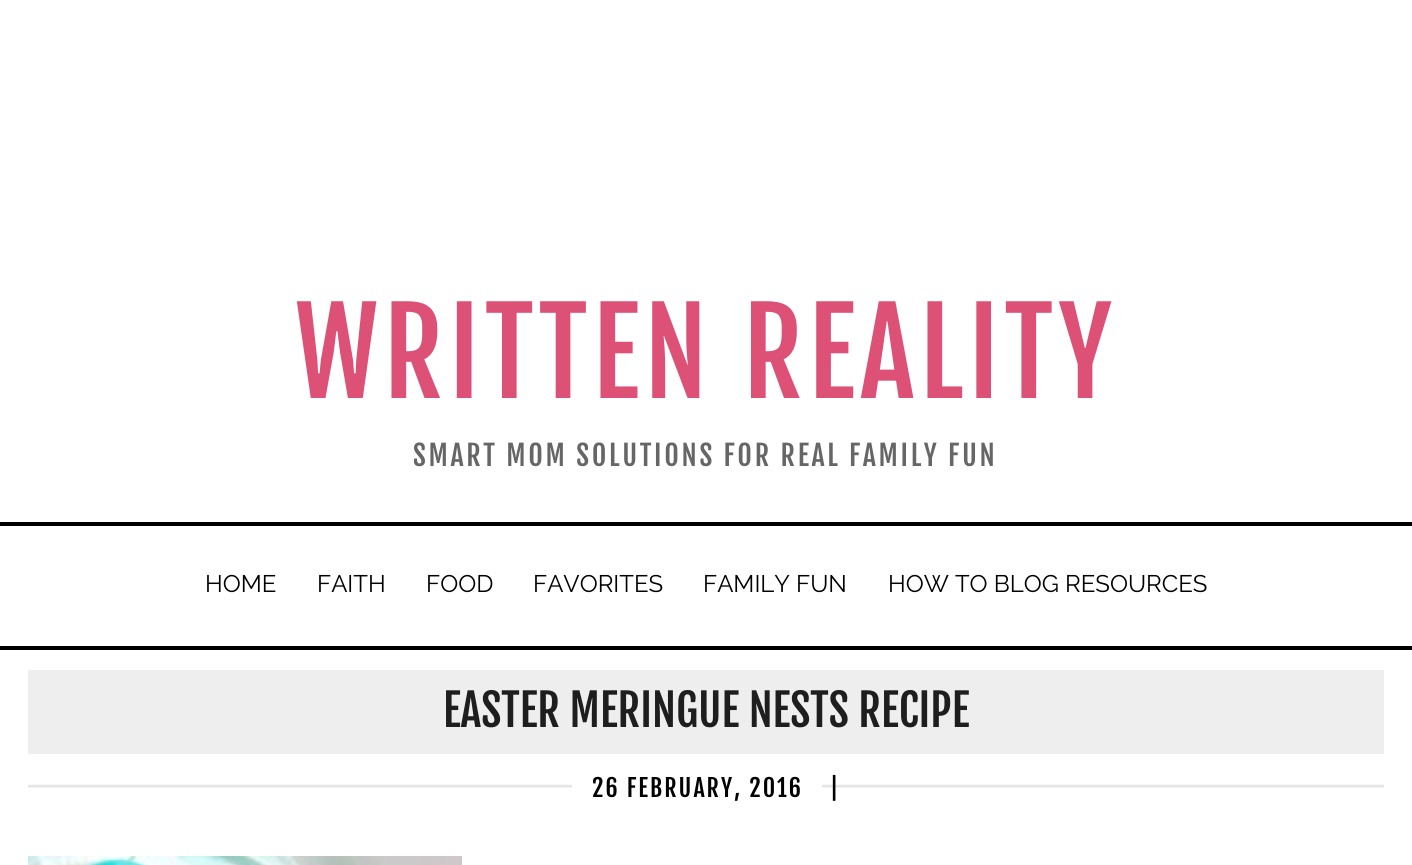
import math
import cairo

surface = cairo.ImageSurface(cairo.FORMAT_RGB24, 1412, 865)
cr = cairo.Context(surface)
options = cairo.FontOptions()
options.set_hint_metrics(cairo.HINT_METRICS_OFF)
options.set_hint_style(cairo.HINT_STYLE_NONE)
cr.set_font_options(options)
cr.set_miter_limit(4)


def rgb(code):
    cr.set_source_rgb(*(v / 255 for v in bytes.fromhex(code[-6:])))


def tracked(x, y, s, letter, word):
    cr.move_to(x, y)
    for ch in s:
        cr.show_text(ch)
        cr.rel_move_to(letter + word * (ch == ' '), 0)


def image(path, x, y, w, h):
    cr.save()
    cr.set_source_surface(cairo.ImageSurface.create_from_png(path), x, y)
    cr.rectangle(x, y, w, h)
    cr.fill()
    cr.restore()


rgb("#ffffff")
cr.paint()
for x, y, w, h, color in [
    (0, 522, 1412, 4, "#000000"),
    (0, 646, 1412, 4, "#000000"),
    (28, 670, 1356, 84, "#eeeeee"),
]:
    rgb(color)
    cr.rectangle(x, y, w, h)
    cr.fill()
image("img/1.png", 28, 784, 1356, 4)
rgb("#ffffff")
cr.rectangle(572, 784, 250, 4)
cr.fill()
image("img/2.png", 28, 856, 434, 9)
cr.select_font_face("Fjalla One")
cr.set_font_size(116)
rgb("#dd5177")
tracked(295, 398, "WRITTEN REALITY", 5.3, 0)
cr.set_font_size(28)
rgb("#666666")
tracked(413, 466, "SMART MOM SOLUTIONS FOR REAL FAMILY FUN", 2.65, 0)
cr.select_font_face("Raleway")
cr.set_font_size(24)
rgb("#000000")
for x, y, s in [
    (205, 592, "HOME"),
    (317, 592, "FAITH"),
    (426, 592, "FOOD"),
    (533, 592, "FAVORITES"),
    (703, 592, "FAMILY FUN"),
    (888, 592, "HOW TO BLOG RESOURCES"),
]:
    cr.move_to(x, y)
    cr.show_text(s)
cr.select_font_face("Fjalla One")
cr.set_font_size(44)
rgb("#1e1e1e")
cr.move_to(443, 727)
cr.show_text("EASTER MERINGUE NESTS RECIPE")
cr.set_font_size(24)
rgb("#000000")
tracked(592, 797, "26 FEBRUARY, 2016", 2, 0)
tracked(830, 797, "|", 2, 0)
surface.write_to_png("page.png")
